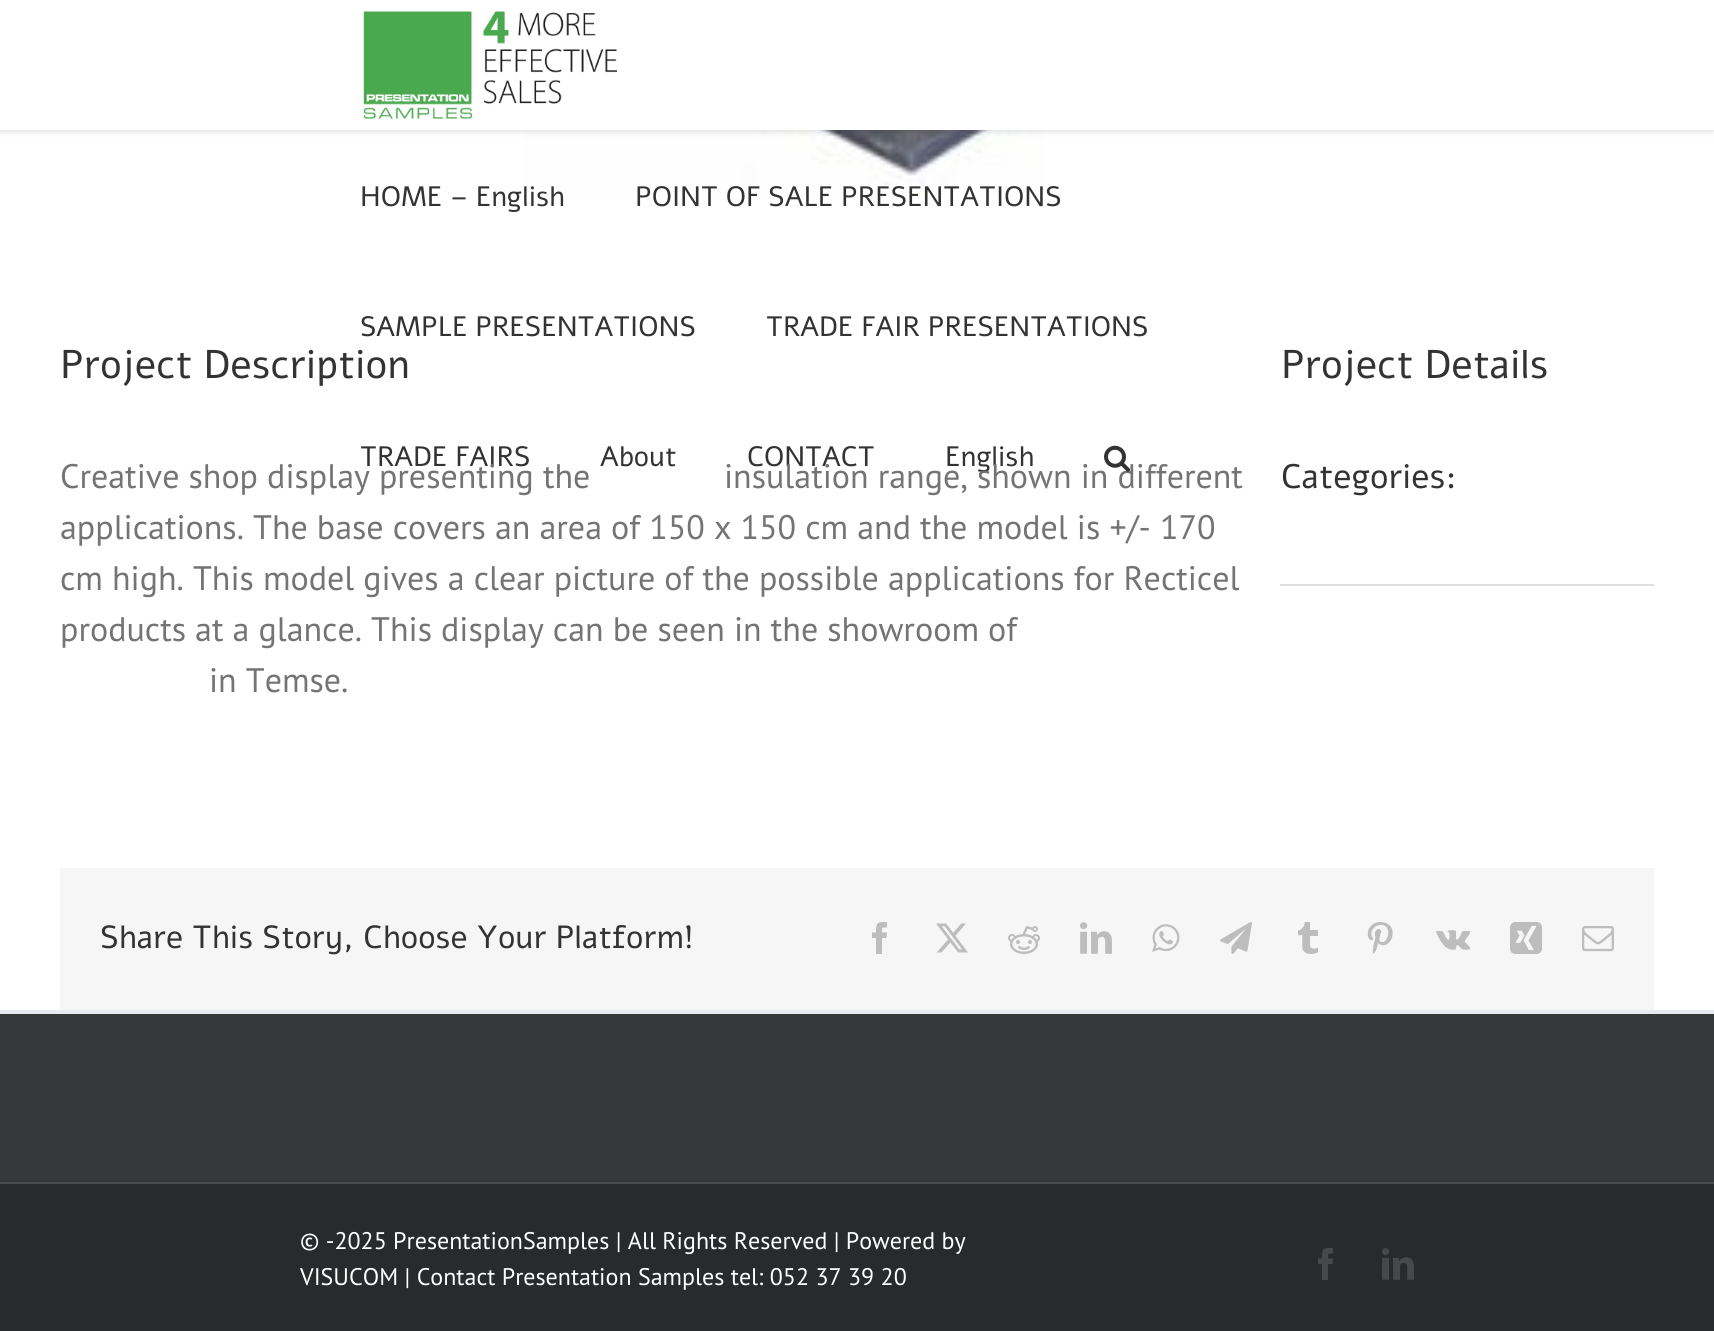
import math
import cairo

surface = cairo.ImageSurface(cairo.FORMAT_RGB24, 1714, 1331)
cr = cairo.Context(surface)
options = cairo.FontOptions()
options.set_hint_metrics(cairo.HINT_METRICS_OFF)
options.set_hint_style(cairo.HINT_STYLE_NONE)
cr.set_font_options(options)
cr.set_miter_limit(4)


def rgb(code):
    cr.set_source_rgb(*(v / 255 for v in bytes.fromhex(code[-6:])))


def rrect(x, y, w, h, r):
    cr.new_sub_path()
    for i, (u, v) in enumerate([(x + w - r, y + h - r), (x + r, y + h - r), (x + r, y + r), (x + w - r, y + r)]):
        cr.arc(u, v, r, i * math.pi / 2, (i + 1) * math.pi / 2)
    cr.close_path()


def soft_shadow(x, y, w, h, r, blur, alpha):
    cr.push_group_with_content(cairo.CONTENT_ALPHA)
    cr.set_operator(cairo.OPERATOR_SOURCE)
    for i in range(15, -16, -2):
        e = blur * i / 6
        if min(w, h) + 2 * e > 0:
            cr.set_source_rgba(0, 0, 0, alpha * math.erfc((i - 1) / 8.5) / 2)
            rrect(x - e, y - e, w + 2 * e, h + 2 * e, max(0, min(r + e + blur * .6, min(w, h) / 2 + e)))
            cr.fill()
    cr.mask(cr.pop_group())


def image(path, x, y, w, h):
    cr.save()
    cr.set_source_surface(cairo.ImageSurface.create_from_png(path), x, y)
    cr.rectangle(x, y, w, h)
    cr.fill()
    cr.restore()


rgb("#ffffff")
cr.paint()
image("img/3.png", 523, 130, 689, 66)
rgb("#000000")
soft_shadow(0, 2, 1714, 130, 0, 3, 0.12)
rgb("#ffffff")
cr.rectangle(0, 0, 1714, 130)
cr.fill()
image("img/1.png", 363, 11, 254, 108)
rgb("#e0dede")
cr.rectangle(1280, 584, 374, 2)
cr.fill()
rgb("#f6f6f6")
cr.rectangle(60, 868, 1594, 142)
cr.fill()
image("img/4.png", 872, 922, 15, 32)
image("img/5.png", 936, 923, 32, 30)
image("img/6.png", 1008, 926, 32, 28)
image("img/7.png", 1080, 922, 32, 32)
image("img/8.png", 1152, 924, 28, 28)
image("img/9.png", 1220, 922, 32, 32)
image("img/10.png", 1298, 922, 20, 32)
image("img/11.png", 1367, 922, 26, 32)
image("img/12.png", 1436, 930, 35, 20)
image("img/13.png", 1510, 922, 32, 32)
image("img/14.png", 1582, 926, 32, 26)
for x, y, w, h, color in [
    (0, 1014, 1714, 168, "#363839"),
    (0, 1010, 1714, 4, "#e9eaee"),
    (0, 1184, 1714, 147, "#282a2b"),
    (0, 1182, 1714, 2, "#4b4c4d"),
]:
    rgb(color)
    cr.rectangle(x, y, w, h)
    cr.fill()
image("img/15.png", 1318, 1248, 15, 32)
image("img/16.png", 1382, 1248, 32, 32)
cr.select_font_face("Alef")
cr.set_font_size(28)
rgb("#333333")
for x, y, s in [
    (360, 206, "HOME – English"),
    (635, 206, "POINT OF SALE PRESENTATIONS"),
    (360, 336, "SAMPLE PRESENTATIONS"),
    (766, 336, "TRADE FAIR PRESENTATIONS"),
    (360, 466, "TRADE FAIRS"),
    (600, 466, "About"),
    (747, 466, "CONTACT"),
    (945, 466, "English"),
]:
    cr.move_to(x, y)
    cr.show_text(s)
cr.set_font_size(40)
cr.move_to(60, 378)
cr.show_text("Project Description")
cr.select_font_face("PT Sans")
cr.set_font_size(34)
rgb("#747474")
cr.move_to(60, 488)
cr.show_text("Creative shop display presenting the")
cr.move_to(724, 488)
cr.show_text("insulation range, shown in different")
image("img/2.png", 1104, 445, 26, 27)
for x, y, s in [
    (60, 539, "applications. The base covers an area of 150 x 150 cm and the model is +/- 170"),
    (60, 590, "cm high. This model gives a clear picture of the possible applications for Recticel"),
    (60, 641, "products at a glance. This display can be seen in the showroom of"),
    (209, 692, "in Temse."),
]:
    cr.move_to(x, y)
    cr.show_text(s)
cr.select_font_face("Alef")
cr.set_font_size(40)
rgb("#333333")
cr.move_to(1281, 378)
cr.show_text("Project Details")
cr.set_font_size(34)
cr.move_to(1281, 488)
cr.show_text("Categories:")
cr.set_font_size(32)
cr.move_to(100, 948)
cr.show_text("Share This Story, Choose Your Platform!")
cr.select_font_face("PT Sans")
cr.set_font_size(24)
rgb("#ffffff")
cr.move_to(300, 1249)
cr.show_text("© -2025 PresentationSamples | All Rights Reserved | Powered by")
cr.move_to(300, 1285)
cr.show_text("VISUCOM | Contact Presentation Samples tel: 052 37 39 20")
surface.write_to_png("page.png")
